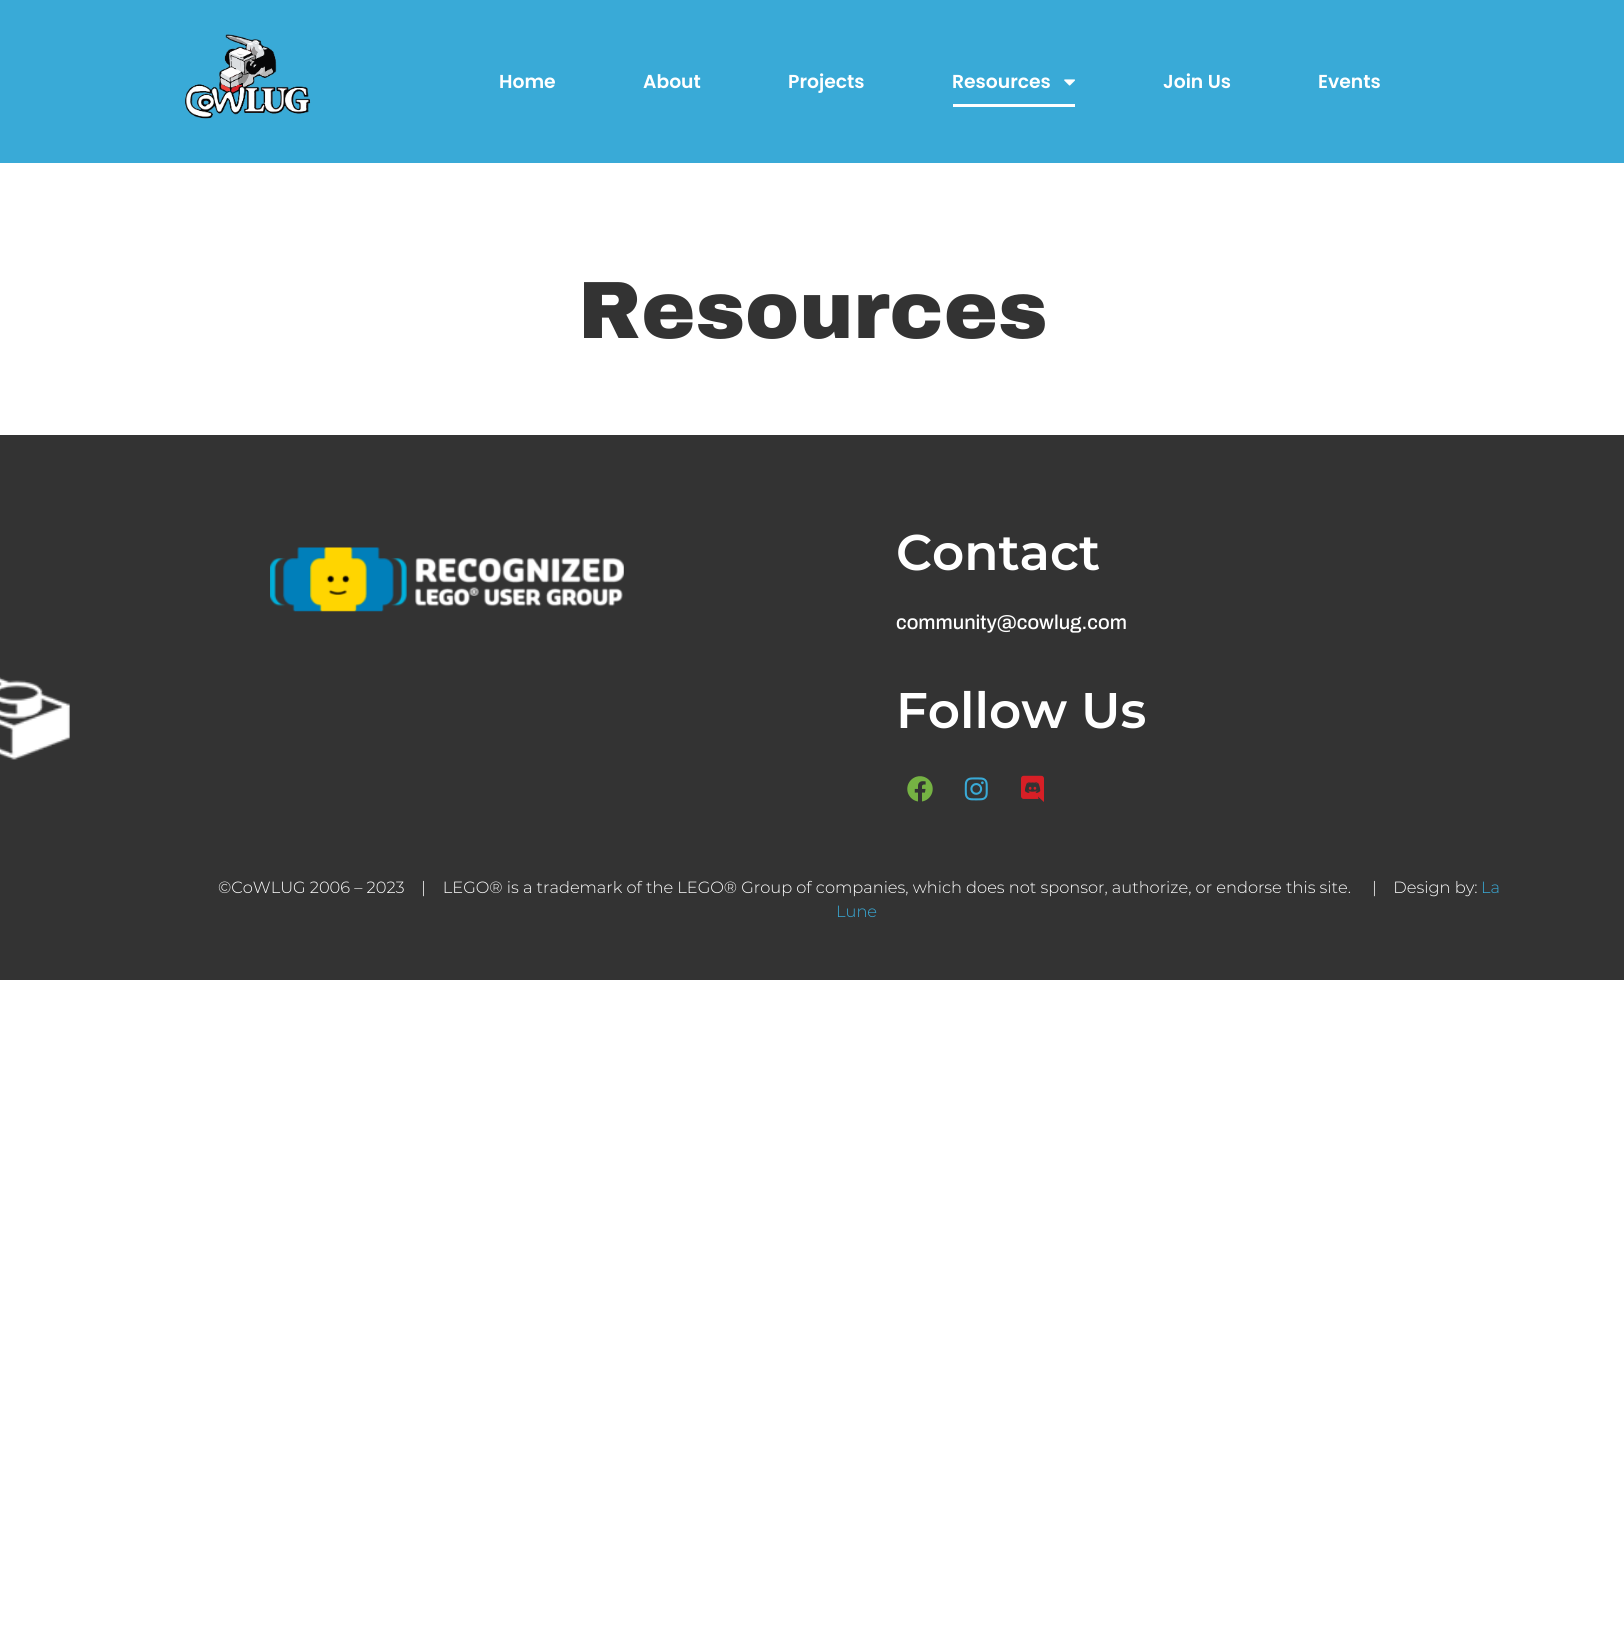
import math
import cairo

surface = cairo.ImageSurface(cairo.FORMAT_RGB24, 1624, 1636)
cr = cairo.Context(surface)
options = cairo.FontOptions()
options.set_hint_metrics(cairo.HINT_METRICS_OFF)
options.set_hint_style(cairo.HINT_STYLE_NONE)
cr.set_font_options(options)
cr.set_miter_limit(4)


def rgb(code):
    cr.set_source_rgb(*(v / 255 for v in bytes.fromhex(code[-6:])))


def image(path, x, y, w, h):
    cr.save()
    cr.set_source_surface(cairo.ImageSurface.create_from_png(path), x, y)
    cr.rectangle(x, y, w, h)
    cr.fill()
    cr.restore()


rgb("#ffffff")
cr.paint()
rgb("#39aad7")
cr.rectangle(0, 0, 1624, 163)
cr.fill()
image("img/1.png", 185, 34, 126, 85)
image("img/2.png", 1064, 79, 11, 7)
rgb("#ffffff")
cr.rectangle(953, 104, 122, 3)
cr.fill()
rgb("#333333")
cr.rectangle(0, 435, 1624, 545)
cr.fill()
image("img/3.png", 0, 677, 70, 83)
image("img/4.png", 270, 547, 354, 65)
image("img/5.png", 907, 776, 26, 26)
image("img/6.png", 964, 777, 24, 24)
image("img/7.png", 1021, 775, 23, 27)
cr.select_font_face("Poppins SemiBold")
cr.set_font_size(18.75)
rgb("#ffffff")
for x, y, s in [
    (499, 88, "Home"),
    (643, 88, "About"),
    (788, 88, "Projects"),
    (952, 88, "Resources"),
    (1163, 88, "Join Us"),
    (1318, 88, "Events"),
]:
    cr.move_to(x, y)
    cr.show_text(s)
cr.select_font_face("Archivo Black Black")
cr.set_font_size(81.25)
rgb("#333333")
cr.move_to(578, 338)
cr.show_text("Resources")
cr.select_font_face("Montserrat SemiBold")
cr.set_font_size(50)
rgb("#ffffff")
cr.move_to(896, 570)
cr.show_text("Contact")
cr.select_font_face("Archivo Medium")
cr.set_font_size(20)
cr.move_to(896, 629)
cr.show_text("community@cowlug.com")
cr.select_font_face("Montserrat SemiBold")
cr.set_font_size(50)
cr.move_to(896, 728)
cr.show_text("Follow Us")
cr.select_font_face("Montserrat Light")
cr.set_font_size(16.25)
cr.move_to(218, 893)
cr.show_text("©CoWLUG 2006 – 2023    |    LEGO® is a trademark of the LEGO® Group of companies, which does not sponsor, authorize, or endorse this site.     |    Design by:")
rgb("#39aad7")
cr.move_to(1481, 893)
cr.show_text("La")
cr.move_to(836, 917)
cr.show_text("Lune")
surface.write_to_png("page.png")
